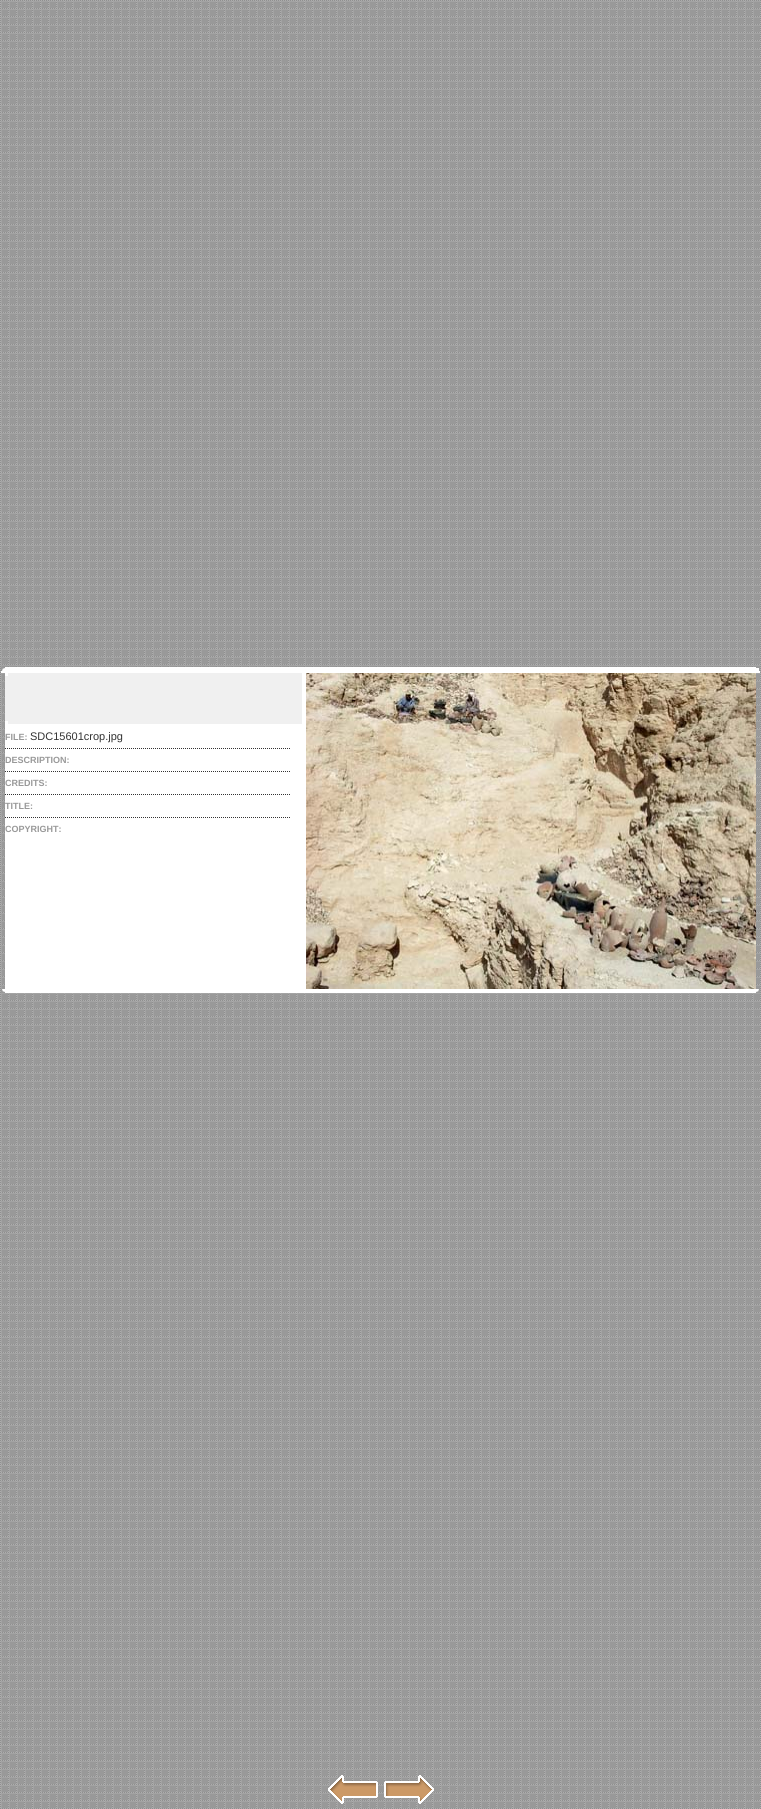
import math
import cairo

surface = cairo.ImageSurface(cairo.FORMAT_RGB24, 761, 1809)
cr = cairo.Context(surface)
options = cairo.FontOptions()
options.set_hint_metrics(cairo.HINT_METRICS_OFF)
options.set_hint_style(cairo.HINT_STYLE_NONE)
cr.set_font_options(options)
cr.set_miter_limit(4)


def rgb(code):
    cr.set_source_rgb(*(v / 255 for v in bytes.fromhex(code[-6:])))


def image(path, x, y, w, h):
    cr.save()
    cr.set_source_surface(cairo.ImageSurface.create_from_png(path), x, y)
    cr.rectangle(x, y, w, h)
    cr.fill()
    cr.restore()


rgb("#ffffff")
cr.paint()
image("img/1.png", 0, 0, 761, 1809)
image("img/2.png", 1, 667, 4, 4)
for x, y, w, h, color in [
    (5, 667, 751, 4, "#ffffff"),
    (756, 668, 3, 3, "#ffffff"),
    (1, 671, 759, 2, "#ffffff"),
    (5, 673, 301, 316, "#ffffff"),
    (5, 673, 297, 4, "#f0f0f0"),
    (5, 673, 3, 3, "#ffffff"),
    (5, 677, 297, 43, "#f0f0f0"),
    (5, 720, 297, 4, "#f0f0f0"),
    (5, 721, 3, 3, "#ffffff"),
]:
    rgb(color)
    cr.rectangle(x, y, w, h)
    cr.fill()
cr.new_path()
cr.move_to(5, 748.5)
cr.line_to(291, 748.5)
rgb("#333333")
cr.set_line_width(1)
cr.set_dash([1, 1])
cr.stroke()
cr.new_path()
cr.move_to(5, 771.5)
cr.line_to(291, 771.5)
cr.stroke()
cr.new_path()
cr.move_to(5, 794.5)
cr.line_to(291, 794.5)
cr.stroke()
cr.new_path()
cr.move_to(5, 817.5)
cr.line_to(291, 817.5)
cr.stroke()
image("img/3.png", 306, 673, 450, 316)
image("img/4.png", 1, 989, 4, 4)
rgb("#ffffff")
cr.rectangle(5, 989, 751, 4)
cr.fill()
image("img/5.png", 756, 989, 4, 4)
image("img/6.png", 328, 1775, 50, 29)
image("img/7.png", 384, 1775, 50, 29)
cr.select_font_face("Liberation Sans", cairo.FONT_SLANT_NORMAL, cairo.FONT_WEIGHT_BOLD)
cr.set_font_size(9)
rgb("#999999")
cr.move_to(5, 740)
cr.show_text("FILE:")
cr.select_font_face("Liberation Sans")
cr.set_font_size(11)
rgb("#333333")
cr.move_to(30, 740)
cr.show_text("SDC15601crop.jpg")
cr.select_font_face("Liberation Sans", cairo.FONT_SLANT_NORMAL, cairo.FONT_WEIGHT_BOLD)
cr.set_font_size(9)
rgb("#999999")
for x, y, s in [
    (5, 763, "DESCRIPTION:"),
    (5, 786, "CREDITS:"),
    (5, 809, "TITLE:"),
    (5, 832, "COPYRIGHT:"),
]:
    cr.move_to(x, y)
    cr.show_text(s)
surface.write_to_png("page.png")
